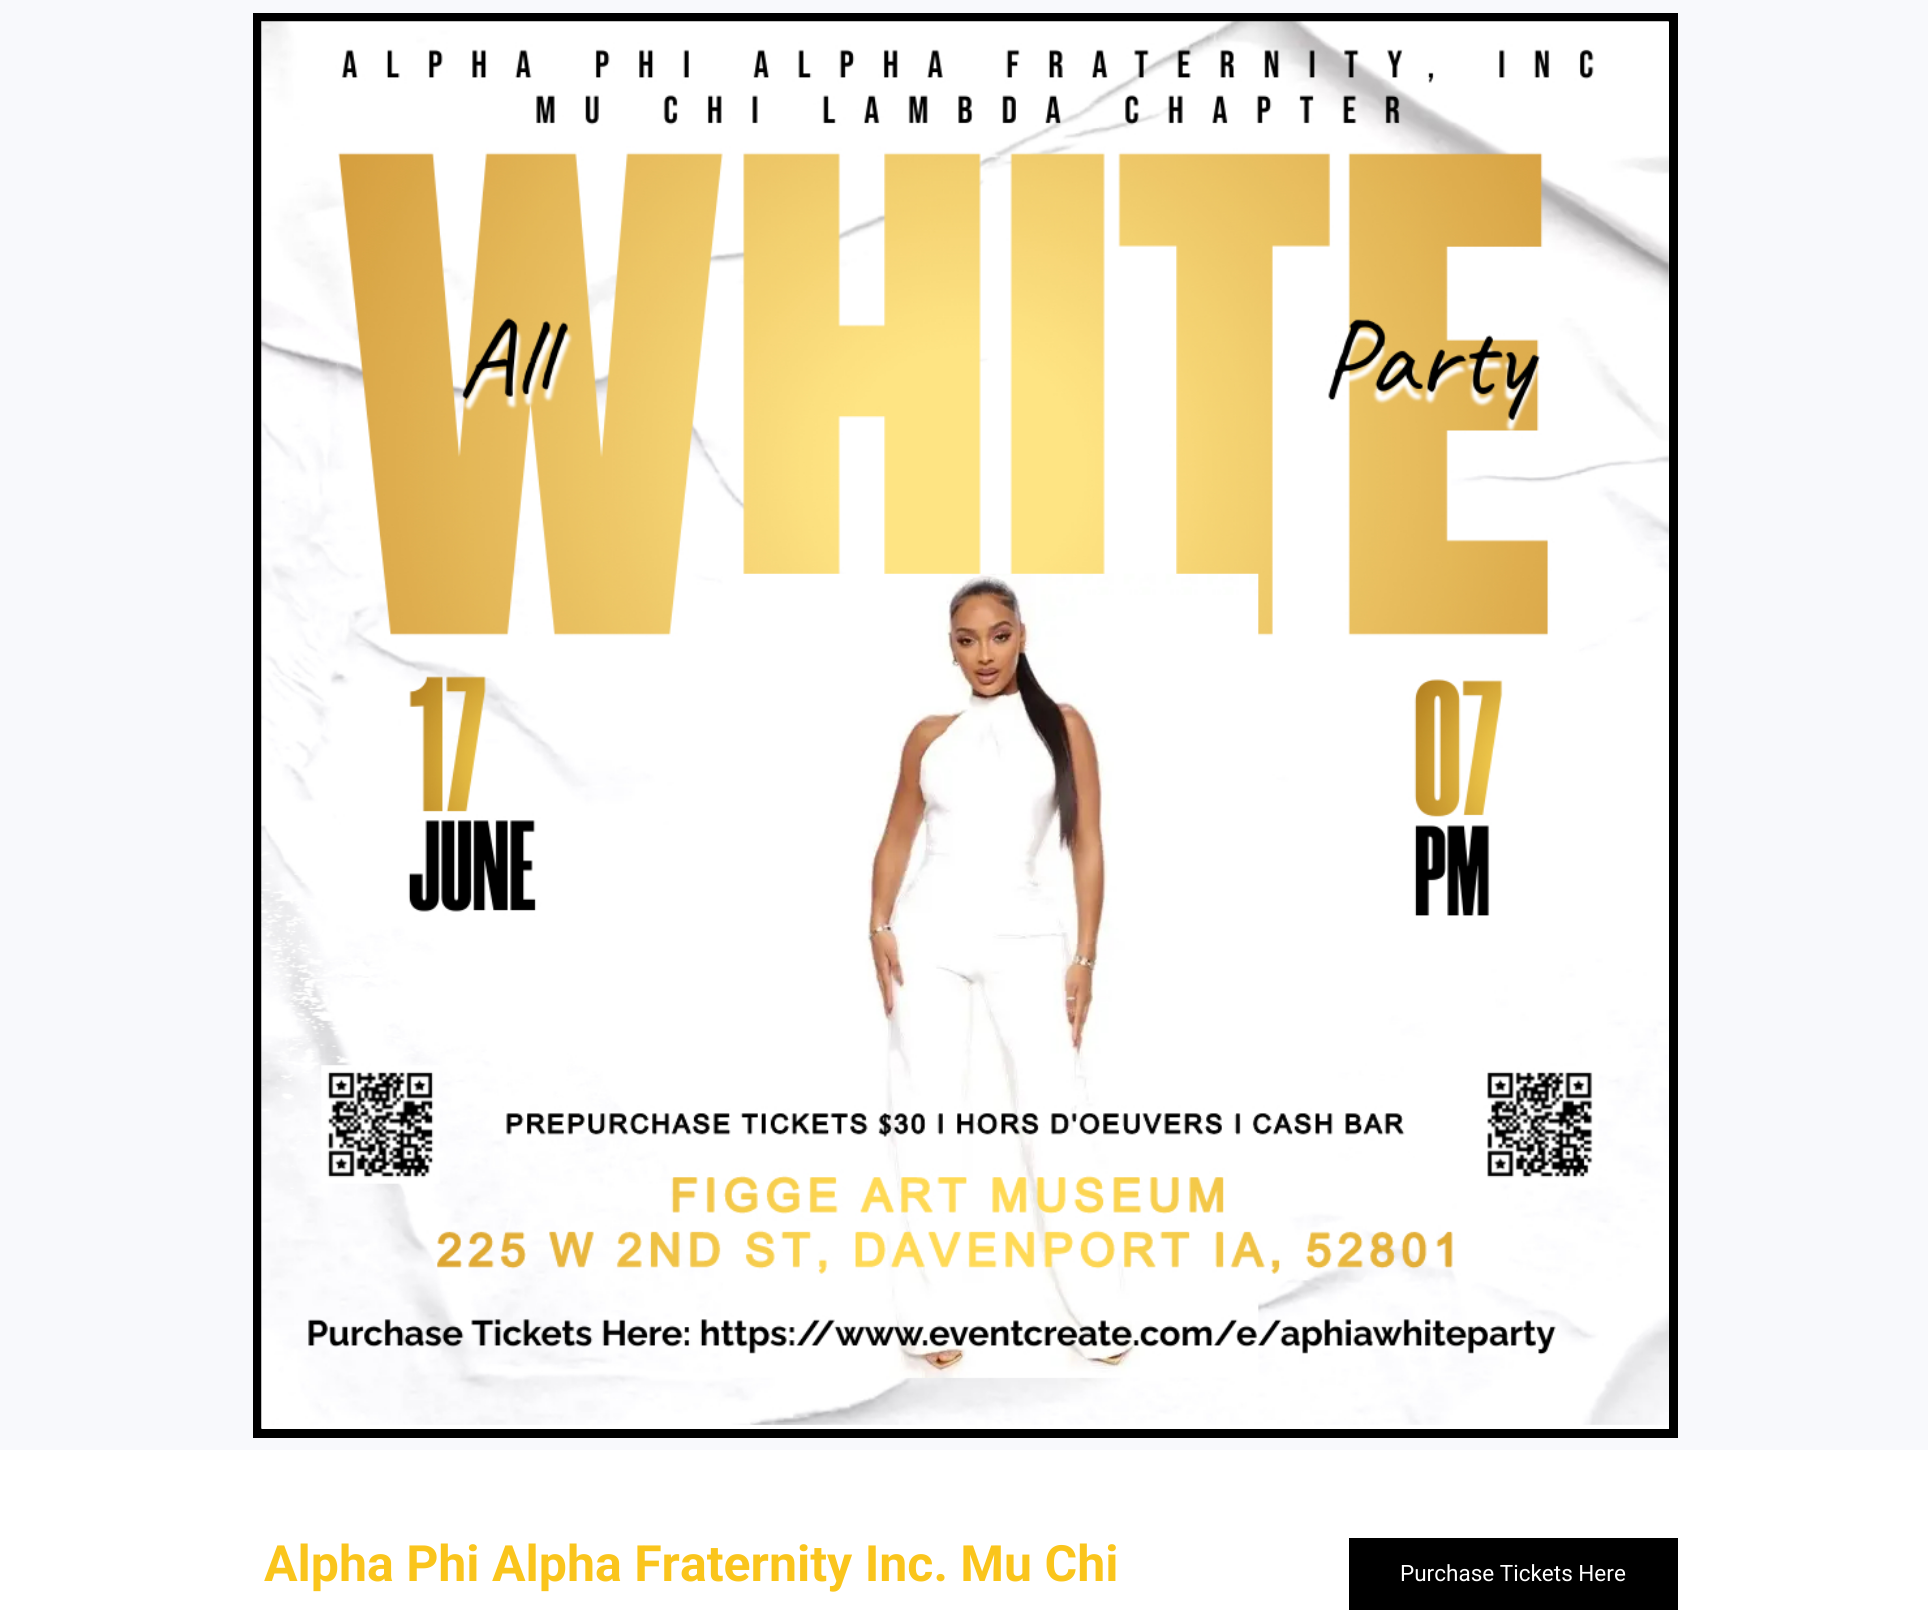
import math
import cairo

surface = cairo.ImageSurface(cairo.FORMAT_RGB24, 1928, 1621)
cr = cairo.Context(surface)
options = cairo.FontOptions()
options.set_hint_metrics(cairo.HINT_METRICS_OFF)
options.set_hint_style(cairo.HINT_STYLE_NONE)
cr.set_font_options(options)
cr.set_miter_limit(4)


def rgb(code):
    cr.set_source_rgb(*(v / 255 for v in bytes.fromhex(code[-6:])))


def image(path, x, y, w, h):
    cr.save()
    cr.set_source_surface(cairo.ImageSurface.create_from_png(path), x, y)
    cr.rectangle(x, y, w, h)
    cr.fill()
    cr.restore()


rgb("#ffffff")
cr.paint()
rgb("#f8f9fc")
cr.rectangle(0, 0, 1928, 1450)
cr.fill()
cr.rectangle(257.5, 17.5, 1416, 1416)
rgb("#000000")
cr.set_line_width(9)
cr.stroke()
image("img/1.png", 261, 21, 1408, 1408)
cr.rectangle(1349, 1538, 329, 72)
cr.fill()
cr.select_font_face("Roboto", cairo.FONT_SLANT_NORMAL, cairo.FONT_WEIGHT_BOLD)
cr.set_font_size(50)
rgb("#fac51c")
cr.move_to(264, 1581)
cr.show_text("Alpha Phi Alpha Fraternity Inc. Mu Chi")
cr.select_font_face("Roboto")
cr.set_font_size(22.5)
rgb("#ffffff")
cr.move_to(1400, 1581)
cr.show_text("Purchase Tickets Here")
surface.write_to_png("page.png")
